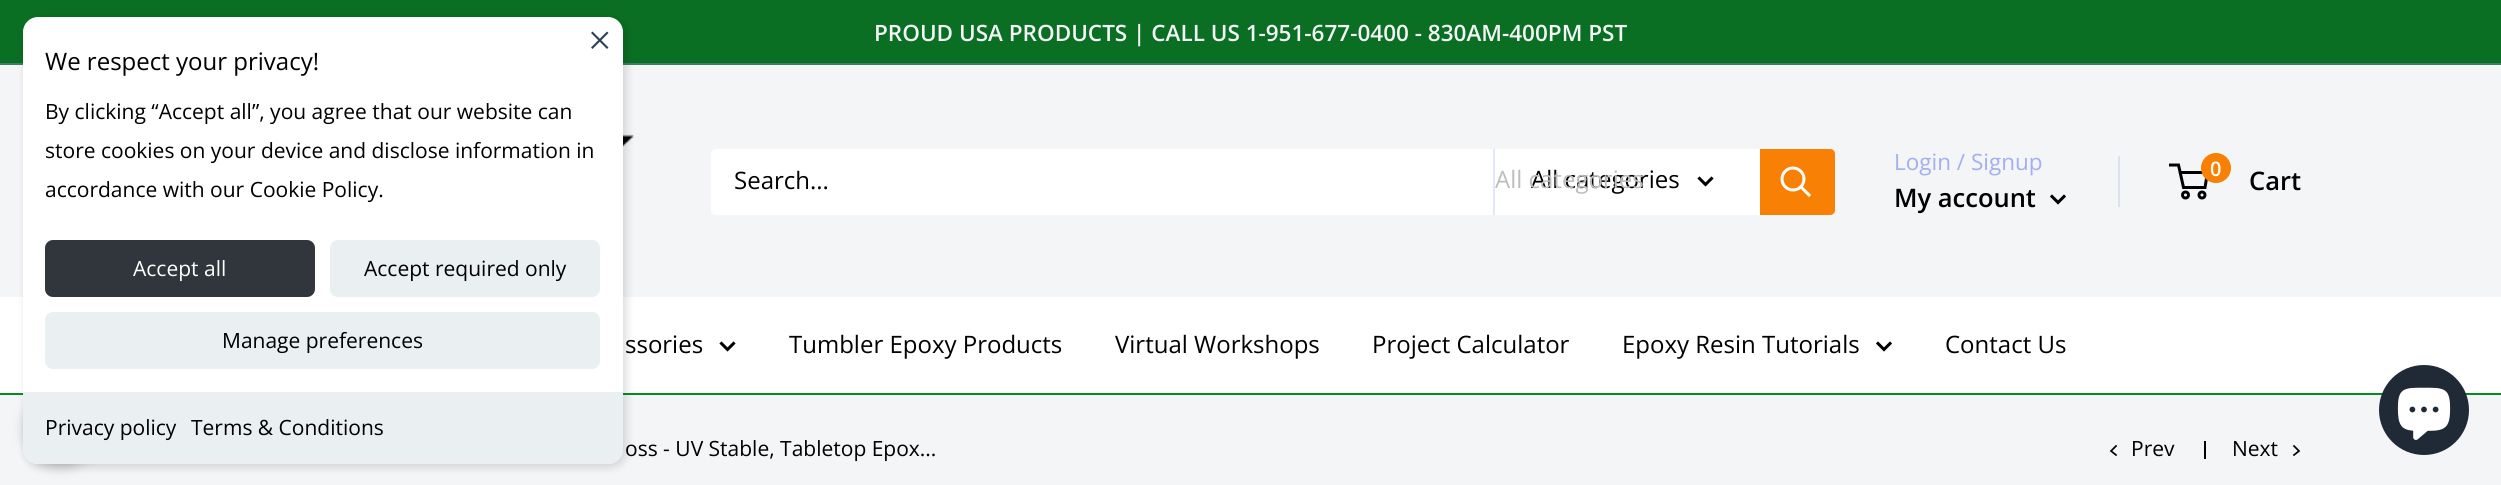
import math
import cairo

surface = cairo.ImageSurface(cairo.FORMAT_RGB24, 2501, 485)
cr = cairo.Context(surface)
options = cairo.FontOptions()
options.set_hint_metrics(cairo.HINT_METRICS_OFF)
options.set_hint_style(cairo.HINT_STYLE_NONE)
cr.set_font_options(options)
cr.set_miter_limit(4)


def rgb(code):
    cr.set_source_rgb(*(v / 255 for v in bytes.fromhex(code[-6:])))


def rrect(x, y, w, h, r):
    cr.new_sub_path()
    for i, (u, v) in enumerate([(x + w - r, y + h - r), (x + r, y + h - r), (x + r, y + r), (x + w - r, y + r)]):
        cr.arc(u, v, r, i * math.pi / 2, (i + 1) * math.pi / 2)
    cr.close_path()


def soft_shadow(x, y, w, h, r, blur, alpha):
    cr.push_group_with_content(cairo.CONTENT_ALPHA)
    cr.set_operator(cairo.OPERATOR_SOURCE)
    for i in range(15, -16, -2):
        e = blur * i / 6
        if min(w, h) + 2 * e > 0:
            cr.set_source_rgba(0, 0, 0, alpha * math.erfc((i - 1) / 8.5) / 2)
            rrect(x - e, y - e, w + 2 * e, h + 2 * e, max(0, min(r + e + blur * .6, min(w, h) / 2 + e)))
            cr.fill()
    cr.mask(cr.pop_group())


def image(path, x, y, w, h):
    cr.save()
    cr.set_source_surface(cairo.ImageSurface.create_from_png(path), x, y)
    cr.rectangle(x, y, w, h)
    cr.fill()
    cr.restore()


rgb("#f3f5f6")
cr.paint()
rgb("#0a6e23")
cr.rectangle(0, 0, 2501, 63)
cr.fill()
rgb("#388260")
cr.rectangle(0, 63, 2501, 2)
cr.fill()
image("img/1.png", 623, 134, 11, 13)
rgb("#ffffff")
cr.rectangle(0, 297, 2501, 96)
cr.fill()
rgb("#038c23")
cr.rectangle(0, 393, 2501, 2)
cr.fill()
rgb("#000000")
soft_shadow(26, 20, 600, 447, 15, 4.5, 0.15)
soft_shadow(24, 392, 75, 75, 37.5, 6, 0.2)
rgb("#ffffff")
rrect(23, 17, 600, 447, 15)
cr.fill()
rgb("#2d4156")
cr.new_path()
cr.move_to(607, 31.5)
cr.line_to(608.5, 33)
cr.line_to(592.5, 49)
cr.line_to(591, 47.5)
cr.close_path()
cr.fill()
cr.new_path()
cr.move_to(591, 33)
cr.line_to(592.5, 31.5)
cr.line_to(608.5, 47.5)
cr.line_to(607, 49)
cr.close_path()
cr.fill()
rgb("#30363c")
rrect(45, 240, 270, 57, 8)
cr.fill()
rgb("#eaeff2")
rrect(330, 240, 270, 57, 8)
cr.fill()
rrect(45, 312, 555, 57, 8)
cr.fill()
cr.new_path()
cr.move_to(23, 392)
cr.line_to(623, 392)
cr.line_to(623, 449)
cr.curve_to(623, 457.5, 616.5, 464, 608, 464)
cr.line_to(38, 464)
cr.curve_to(29.5, 464, 23, 457.5, 23, 449)
cr.close_path()
cr.fill()
rgb("#eeeeee")
cr.rectangle(23, 392, 600, 2)
cr.fill()
cr.save()
rrect(23, 17, 600, 447, 15)
cr.clip()
cr.rectangle(23, 462, 600, 2)
cr.fill()
cr.restore()
rgb("#ffffff")
rrect(711, 149, 1124, 66, 5)
cr.fill()
rgb("#e3e7fa")
cr.rectangle(1493, 149, 2, 66)
cr.fill()
cr.new_path()
cr.move_to(1711.5, 178.5)
cr.line_to(1705.5, 184.5)
cr.line_to(1699.5, 178.5)
rgb("#000000")
cr.set_line_width(3)
cr.set_line_cap(cairo.LINE_CAP_SQUARE)
cr.stroke()
rgb("#f88004")
cr.new_path()
cr.move_to(1760, 149)
cr.line_to(1830, 149)
cr.curve_to(1833, 149, 1835, 151, 1835, 154)
cr.line_to(1835, 210)
cr.curve_to(1835, 213, 1833, 215, 1830, 215)
cr.line_to(1760, 215)
cr.close_path()
cr.fill()
cr.new_path()
cr.move_to(1809, 195)
cr.line_to(1801.5, 187.5)
rgb("#ffffff")
cr.stroke()
cr.arc(1793, 179, 11, 0, 2 * math.pi)
cr.set_line_cap(cairo.LINE_CAP_BUTT)
cr.stroke()
rgb("#dbe0f4")
cr.rectangle(2118, 156, 2, 51)
cr.fill()
cr.new_path()
cr.move_to(2064, 196.5)
cr.line_to(2058, 202.5)
cr.line_to(2052, 196.5)
rgb("#000000")
cr.set_line_cap(cairo.LINE_CAP_SQUARE)
cr.stroke()
cr.arc(2185.5, 195, 3, 0, 2 * math.pi)
cr.set_line_cap(cairo.LINE_CAP_BUTT)
cr.stroke()
cr.arc(2202, 195, 3, 0, 2 * math.pi)
cr.stroke()
cr.new_path()
cr.move_to(2180, 172.5)
cr.line_to(2207.5, 172.5)
cr.line_to(2205, 187.5)
cr.line_to(2183.5, 187.5)
cr.line_to(2178.5, 165)
cr.line_to(2169, 165)
cr.stroke()
rgb("#f88004")
cr.arc(2216, 168, 15, 0, 2 * math.pi)
cr.fill()
cr.new_path()
cr.move_to(733.5, 343.5)
cr.line_to(727.5, 349.5)
cr.line_to(721.5, 343.5)
rgb("#000000")
cr.set_line_cap(cairo.LINE_CAP_SQUARE)
cr.stroke()
cr.new_path()
cr.move_to(1890, 343.5)
cr.line_to(1884, 349.5)
cr.line_to(1878, 343.5)
cr.stroke()
cr.new_path()
cr.move_to(2116, 455)
cr.line_to(2111, 451)
cr.line_to(2116, 446)
cr.set_line_width(1.7)
cr.stroke()
cr.rectangle(2204, 441, 2, 18)
cr.fill()
cr.new_path()
cr.move_to(2294, 446)
cr.line_to(2299, 451)
cr.line_to(2294, 455)
cr.stroke()
rgb("#202a36")
cr.arc(2424, 410, 45, 0, 2 * math.pi)
cr.fill()
image("img/2.png", 2397, 387, 54, 53)
cr.select_font_face("Open Sans SemiBold")
cr.set_font_size(22.5)
rgb("#f3f5f6")
cr.move_to(874, 41)
cr.show_text("PROUD USA PRODUCTS | CALL US 1-951-677-0400 - 830AM-400PM PST")
cr.select_font_face("Open Sans")
cr.set_font_size(24)
rgb("#000000")
cr.move_to(45, 70)
cr.show_text("We respect your privacy!")
cr.set_font_size(21)
for x, y, s in [
    (45, 119, "By clicking “Accept all”, you agree that our website can"),
    (45, 158, "store cookies on your device and disclose information in"),
    (45, 197, "accordance with our Cookie Policy."),
]:
    cr.move_to(x, y)
    cr.show_text(s)
rgb("#ffffff")
cr.move_to(133, 276)
cr.show_text("Accept all")
rgb("#000000")
for x, y, s in [
    (364, 276, "Accept required only"),
    (222, 348, "Manage preferences"),
    (45, 435, "Privacy policy"),
    (191, 435, "Terms & Conditions"),
]:
    cr.move_to(x, y)
    cr.show_text(s)
cr.set_font_size(24)
cr.move_to(734, 189)
cr.show_text("Search...")
cr.move_to(1531, 188)
cr.show_text("All categories")
rgb("#bdbdbd")
cr.move_to(1495, 188)
cr.show_text("All categories")
cr.set_font_size(22.5)
rgb("#a3afef")
cr.move_to(1894, 170)
cr.show_text("Login / Signup")
cr.select_font_face("Open Sans SemiBold")
cr.set_font_size(25.5)
rgb("#000000")
cr.move_to(1894, 207)
cr.show_text("My account")
cr.set_font_size(20)
rgb("#ffffff")
cr.move_to(2210, 176)
cr.show_text("0")
cr.set_font_size(25.5)
rgb("#000000")
cr.move_to(2249, 190)
cr.show_text("Cart")
cr.select_font_face("Open Sans")
cr.set_font_size(24)
for x, y, s in [
    (625, 353, "ssories"),
    (789, 353, "Tumbler Epoxy Products"),
    (1115, 353, "Virtual Workshops"),
    (1372, 353, "Project Calculator"),
    (1622, 353, "Epoxy Resin Tutorials"),
    (1945, 353, "Contact Us"),
]:
    cr.move_to(x, y)
    cr.show_text(s)
cr.set_font_size(21)
for x, y, s in [
    (625, 456, "oss - UV Stable, Tabletop Epox..."),
    (2131, 456, "Prev"),
    (2232, 456, "Next"),
]:
    cr.move_to(x, y)
    cr.show_text(s)
surface.write_to_png("page.png")
